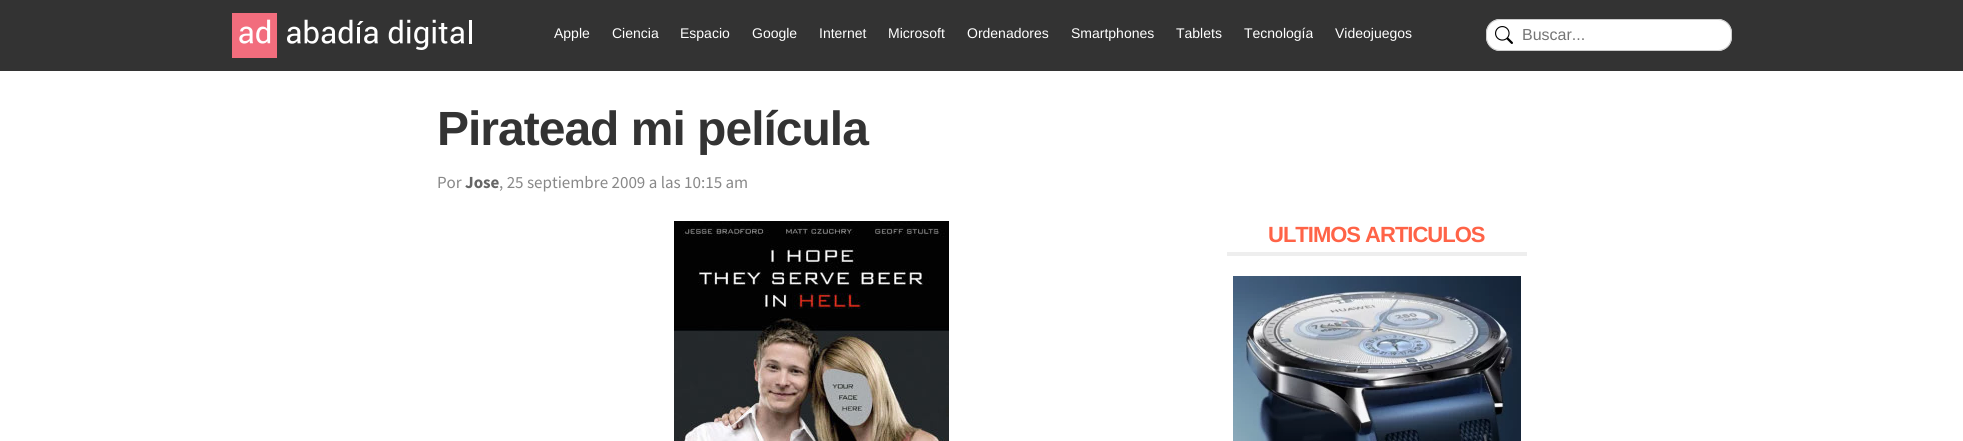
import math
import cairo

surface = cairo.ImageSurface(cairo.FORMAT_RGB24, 1963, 441)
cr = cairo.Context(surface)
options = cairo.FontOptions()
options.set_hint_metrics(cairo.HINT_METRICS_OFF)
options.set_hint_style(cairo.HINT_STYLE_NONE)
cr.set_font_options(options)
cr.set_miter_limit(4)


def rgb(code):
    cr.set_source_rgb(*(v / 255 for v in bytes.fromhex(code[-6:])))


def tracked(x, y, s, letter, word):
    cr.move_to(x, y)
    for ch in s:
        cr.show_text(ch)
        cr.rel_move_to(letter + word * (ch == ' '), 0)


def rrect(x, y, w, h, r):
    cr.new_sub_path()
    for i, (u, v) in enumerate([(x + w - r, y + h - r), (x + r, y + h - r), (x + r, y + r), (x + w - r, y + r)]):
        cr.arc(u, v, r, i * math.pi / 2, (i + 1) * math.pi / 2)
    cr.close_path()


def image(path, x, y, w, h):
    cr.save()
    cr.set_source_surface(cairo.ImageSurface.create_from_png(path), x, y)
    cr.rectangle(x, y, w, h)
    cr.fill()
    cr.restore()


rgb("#ffffff")
cr.paint()
rgb("#333333")
cr.rectangle(0, 0, 1963, 71)
cr.fill()
image("img/1.png", 232, 13, 240, 45)
rgb("#ffffff")
rrect(1486, 19, 246, 32, 14)
cr.fill()
image("img/2.png", 1495, 26, 18, 18)
rrect(1486.5, 19.5, 245, 31, 13.5)
rgb("#cccccc")
cr.set_line_width(1)
cr.stroke()
image("img/3.png", 674, 221, 275, 220)
rgb("#eeeeee")
cr.rectangle(1227, 252, 300, 4)
cr.fill()
image("img/4.png", 1233, 276, 288, 165)
cr.select_font_face("Liberation Sans")
cr.set_font_size(14)
rgb("#ffffff")
for x, y, s in [
    (554, 38, "Apple"),
    (612, 38, "Ciencia"),
    (680, 38, "Espacio"),
    (752, 38, "Google"),
    (819, 38, "Internet"),
    (888, 38, "Microsoft"),
    (967, 38, "Ordenadores"),
    (1071, 38, "Smartphones"),
    (1176, 38, "Tablets"),
    (1244, 38, "Tecnología"),
    (1335, 38, "Videojuegos"),
]:
    cr.move_to(x, y)
    cr.show_text(s)
cr.set_font_size(16)
rgb("#757575")
cr.move_to(1522, 40)
cr.show_text("Buscar...")
cr.select_font_face("Liberation Sans", cairo.FONT_SLANT_NORMAL, cairo.FONT_WEIGHT_BOLD)
cr.set_font_size(48)
rgb("#333333")
tracked(437, 145, "Piratead mi película", -1, 0)
cr.select_font_face("Source Sans Pro")
cr.set_font_size(17)
rgb("#888888")
cr.move_to(437, 188)
cr.show_text("Por")
cr.select_font_face("Source Sans Pro", cairo.FONT_SLANT_NORMAL, cairo.FONT_WEIGHT_BOLD)
rgb("#666666")
cr.move_to(465, 188)
cr.show_text("Jose")
cr.select_font_face("Source Sans Pro")
rgb("#888888")
cr.move_to(499, 188)
cr.show_text(", 25 septiembre 2009 a las 10:15 am")
cr.select_font_face("Liberation Sans", cairo.FONT_SLANT_NORMAL, cairo.FONT_WEIGHT_BOLD)
cr.set_font_size(22)
rgb("#ff6347")
tracked(1268, 242, "ULTIMOS ARTICULOS", -1, 0)
surface.write_to_png("page.png")
